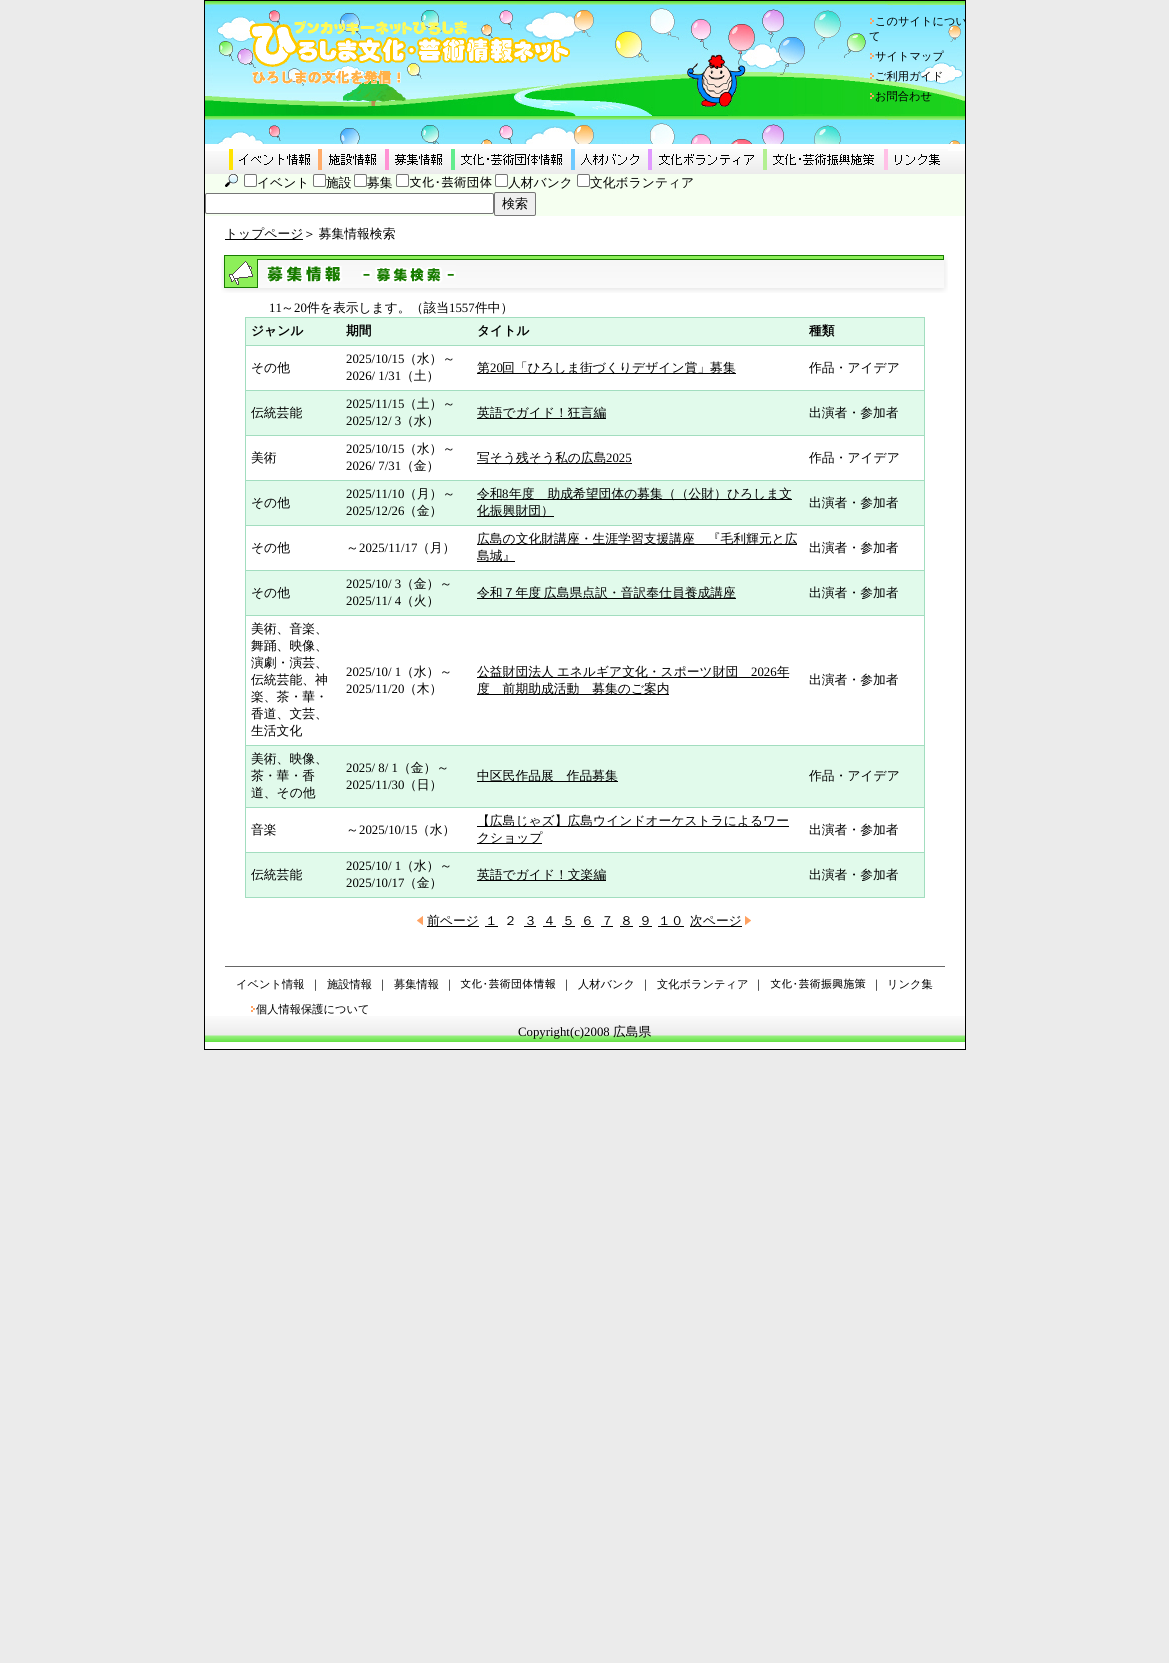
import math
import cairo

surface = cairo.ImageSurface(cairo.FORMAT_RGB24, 1169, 1663)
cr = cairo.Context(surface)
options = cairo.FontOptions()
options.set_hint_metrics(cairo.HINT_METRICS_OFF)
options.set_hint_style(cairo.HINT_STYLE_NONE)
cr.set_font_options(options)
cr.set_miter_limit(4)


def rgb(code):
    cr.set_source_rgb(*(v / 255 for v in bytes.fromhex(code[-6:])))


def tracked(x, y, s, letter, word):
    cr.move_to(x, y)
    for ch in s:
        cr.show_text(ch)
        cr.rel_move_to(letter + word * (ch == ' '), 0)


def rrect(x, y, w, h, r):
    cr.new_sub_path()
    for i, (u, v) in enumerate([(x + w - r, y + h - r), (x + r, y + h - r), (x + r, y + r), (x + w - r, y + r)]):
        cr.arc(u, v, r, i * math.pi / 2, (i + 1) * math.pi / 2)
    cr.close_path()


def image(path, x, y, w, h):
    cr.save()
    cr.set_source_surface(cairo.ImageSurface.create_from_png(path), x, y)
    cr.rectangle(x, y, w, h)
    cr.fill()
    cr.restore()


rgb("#ebebeb")
cr.paint()
rgb("#ffffff")
cr.rectangle(205, 144, 760, 905)
cr.fill()
cr.rectangle(204.5, 0.5, 761, 1049)
rgb("#000000")
cr.set_line_width(1)
cr.stroke()
image("img/1.png", 205, 1, 760, 143)
image("img/2.png", 249, 20, 322, 65)
image("img/3.png", 870, 18, 4, 6)
image("img/4.png", 870, 53, 4, 6)
image("img/5.png", 870, 73, 4, 6)
image("img/6.png", 870, 93, 4, 6)
image("img/7.png", 205, 151, 24, 23)
image("img/8.png", 229, 149, 89, 25)
image("img/9.png", 318, 149, 67, 25)
image("img/10.png", 385, 149, 66, 25)
image("img/11.png", 451, 149, 120, 25)
image("img/12.png", 571, 149, 77, 25)
image("img/13.png", 648, 149, 115, 25)
image("img/14.png", 763, 149, 121, 25)
image("img/15.png", 884, 149, 64, 25)
image("img/16.png", 948, 151, 17, 23)
rgb("#f5fff0")
cr.rectangle(205, 174, 760, 42)
cr.fill()
image("img/17.png", 225, 174, 13, 13)
rgb("#ffffff")
rrect(244.5, 174.5, 12, 12, 1.5)
cr.fill_preserve()
rgb("#767676")
cr.stroke()
rgb("#ffffff")
rrect(313.5, 174.5, 12, 12, 1.5)
cr.fill_preserve()
rgb("#767676")
cr.stroke()
rgb("#ffffff")
rrect(354.5, 174.5, 12, 12, 1.5)
cr.fill_preserve()
rgb("#767676")
cr.stroke()
rgb("#ffffff")
rrect(396.5, 174.5, 12, 12, 1.5)
cr.fill_preserve()
rgb("#767676")
cr.stroke()
rgb("#ffffff")
rrect(495.5, 174.5, 12, 12, 1.5)
cr.fill_preserve()
rgb("#767676")
cr.stroke()
rgb("#ffffff")
rrect(577.5, 174.5, 12, 12, 1.5)
cr.fill_preserve()
rgb("#767676")
cr.stroke()
rgb("#ffffff")
rrect(205.5, 193.5, 288, 20, 1.5)
cr.fill_preserve()
rgb("#767676")
cr.stroke()
rgb("#efefef")
rrect(494.5, 192.5, 41, 23, 1.5)
cr.fill_preserve()
rgb("#767676")
cr.stroke()
rgb("#000000")
cr.rectangle(225, 239, 78, 1)
cr.fill()
image("img/18.png", 221, 255, 727, 38)
for x, y, w, h, color in [
    (245, 317, 680, 581, "#a2ddbf"),
    (246, 318, 678, 27, "#e1faeb"),
    (246, 346, 678, 44, "#ffffff"),
    (477, 373, 259, 1, "#000000"),
    (246, 391, 678, 44, "#e1faeb"),
    (477, 418, 129, 1, "#000000"),
    (246, 436, 678, 44, "#ffffff"),
    (477, 463, 155, 1, "#000000"),
    (246, 481, 678, 44, "#e1faeb"),
    (477, 499, 315, 1, "#000000"),
    (477, 516, 77, 1, "#000000"),
    (246, 526, 678, 44, "#ffffff"),
    (477, 544, 320, 1, "#000000"),
    (477, 561, 38, 1, "#000000"),
    (246, 571, 678, 44, "#e1faeb"),
    (477, 598, 259, 1, "#000000"),
    (246, 616, 678, 129, "#ffffff"),
    (477, 677, 312, 1, "#000000"),
    (477, 694, 192, 1, "#000000"),
    (246, 746, 678, 61, "#e1faeb"),
    (477, 781, 141, 1, "#000000"),
    (246, 808, 678, 44, "#ffffff"),
    (477, 826, 312, 1, "#000000"),
    (477, 843, 65, 1, "#000000"),
    (246, 853, 678, 44, "#e1faeb"),
    (477, 880, 129, 1, "#000000"),
]:
    rgb(color)
    cr.rectangle(x, y, w, h)
    cr.fill()
image("img/19.png", 417, 916, 6, 9)
for x, y, w, h, color in [
    (427, 926, 52, 1, "#000000"),
    (485, 926, 13, 1, "#000000"),
    (524, 926, 12, 1, "#000000"),
    (543, 926, 13, 1, "#000000"),
    (562, 926, 13, 1, "#000000"),
    (581, 926, 13, 1, "#000000"),
    (601, 926, 12, 1, "#000000"),
    (620, 926, 13, 1, "#000000"),
    (639, 926, 13, 1, "#000000"),
    (658, 926, 26, 1, "#000000"),
    (690, 926, 52, 1, "#000000"),
]:
    rgb(color)
    cr.rectangle(x, y, w, h)
    cr.fill()
image("img/20.png", 745, 916, 6, 9)
rgb("#666666")
cr.rectangle(225, 966, 720, 1)
cr.fill()
image("img/21.png", 205, 1016, 760, 26)
image("img/22.png", 251, 1006, 4, 6)
cr.select_font_face("WenQuanYi Zen Hei Medium")
cr.set_font_size(11.25)
rgb("#000000")
for x, y, s in [
    (875, 25, "このサイトについ"),
    (869, 40, "て"),
    (875, 60, "サイトマップ"),
    (875, 80, "ご利用ガイド"),
    (875, 100, "お問合わせ"),
]:
    cr.move_to(x, y)
    cr.show_text(s)
cr.set_font_size(12.8)
for x, y, s in [
    (257, 187, "イベント"),
    (326, 187, "施設"),
    (367, 187, "募集"),
]:
    cr.move_to(x, y)
    cr.show_text(s)
cr.select_font_face("IPAGothic")
cr.move_to(409, 187)
cr.show_text("文化･芸術団体")
cr.select_font_face("WenQuanYi Zen Hei Medium")
cr.move_to(508, 187)
cr.show_text("人材バンク")
cr.move_to(590, 187)
cr.show_text("文化ボランティア")
cr.set_font_size(13)
cr.move_to(502, 208)
cr.show_text("検索")
cr.set_font_size(12.8)
cr.move_to(225, 238)
cr.show_text("トップページ")
tracked(303, 238, "＞ 募集情報検索", 0, -1)
cr.select_font_face("Liberation Serif")
cr.move_to(269, 312)
cr.show_text("11")
cr.select_font_face("WenQuanYi Zen Hei Medium")
cr.move_to(281, 312)
cr.show_text("～")
cr.select_font_face("Liberation Serif")
cr.move_to(294, 312)
cr.show_text("20")
cr.select_font_face("WenQuanYi Zen Hei Medium")
cr.move_to(307, 312)
cr.show_text("件を表示します。（該当")
cr.select_font_face("Liberation Serif")
cr.move_to(449, 312)
cr.show_text("1557")
cr.select_font_face("WenQuanYi Zen Hei Medium")
cr.move_to(475, 312)
cr.show_text("件中）")
cr.select_font_face("WenQuanYi Zen Hei", cairo.FONT_SLANT_NORMAL, cairo.FONT_WEIGHT_BOLD)
for x, y, s in [
    (251, 335, "ジャンル"),
    (346, 335, "期間"),
    (477, 335, "タイトル"),
    (809, 335, "種類"),
]:
    cr.move_to(x, y)
    cr.show_text(s)
cr.select_font_face("WenQuanYi Zen Hei Medium")
cr.move_to(251, 372)
cr.show_text("その他")
cr.select_font_face("Liberation Serif")
cr.move_to(346, 363)
cr.show_text("2025/10/15")
cr.select_font_face("WenQuanYi Zen Hei Medium")
cr.move_to(404, 363)
cr.show_text("（水）～")
cr.select_font_face("Liberation Serif")
cr.move_to(346, 380)
cr.show_text("2026/ 1/31")
cr.select_font_face("WenQuanYi Zen Hei Medium")
cr.move_to(401, 380)
cr.show_text("（土）")
cr.move_to(477, 372)
cr.show_text("第")
cr.select_font_face("Liberation Serif")
cr.move_to(490, 372)
cr.show_text("20")
cr.select_font_face("WenQuanYi Zen Hei Medium")
for x, y, s in [
    (502, 372, "回「ひろしま街づくりデザイン賞」募集"),
    (809, 372, "作品・アイデア"),
    (251, 417, "伝統芸能"),
]:
    cr.move_to(x, y)
    cr.show_text(s)
cr.select_font_face("Liberation Serif")
cr.move_to(346, 408)
cr.show_text("2025/11/15")
cr.select_font_face("WenQuanYi Zen Hei Medium")
cr.move_to(404, 408)
cr.show_text("（土）～")
cr.select_font_face("Liberation Serif")
cr.move_to(346, 425)
cr.show_text("2025/12/ 3")
cr.select_font_face("WenQuanYi Zen Hei Medium")
for x, y, s in [
    (401, 425, "（水）"),
    (477, 417, "英語でガイド！狂言編"),
    (809, 417, "出演者・参加者"),
    (251, 462, "美術"),
]:
    cr.move_to(x, y)
    cr.show_text(s)
cr.select_font_face("Liberation Serif")
cr.move_to(346, 453)
cr.show_text("2025/10/15")
cr.select_font_face("WenQuanYi Zen Hei Medium")
cr.move_to(404, 453)
cr.show_text("（水）～")
cr.select_font_face("Liberation Serif")
cr.move_to(346, 470)
cr.show_text("2026/ 7/31")
cr.select_font_face("WenQuanYi Zen Hei Medium")
cr.move_to(401, 470)
cr.show_text("（金）")
cr.move_to(477, 462)
cr.show_text("写そう残そう私の広島")
cr.select_font_face("Liberation Serif")
cr.move_to(606, 462)
cr.show_text("2025")
cr.select_font_face("WenQuanYi Zen Hei Medium")
cr.move_to(809, 462)
cr.show_text("作品・アイデア")
cr.move_to(251, 507)
cr.show_text("その他")
cr.select_font_face("Liberation Serif")
cr.move_to(346, 498)
cr.show_text("2025/11/10")
cr.select_font_face("WenQuanYi Zen Hei Medium")
cr.move_to(404, 498)
cr.show_text("（月）～")
cr.select_font_face("Liberation Serif")
cr.move_to(346, 515)
cr.show_text("2025/12/26")
cr.select_font_face("WenQuanYi Zen Hei Medium")
cr.move_to(404, 515)
cr.show_text("（金）")
cr.move_to(477, 498)
cr.show_text("令和")
cr.select_font_face("Liberation Serif")
cr.move_to(502, 498)
cr.show_text("8")
cr.select_font_face("WenQuanYi Zen Hei Medium")
for x, y, s in [
    (509, 498, "年度　助成希望団体の募集（（公財）ひろしま文"),
    (477, 515, "化振興財団）"),
    (809, 507, "出演者・参加者"),
    (251, 552, "その他"),
    (346, 552, "～"),
]:
    cr.move_to(x, y)
    cr.show_text(s)
cr.select_font_face("Liberation Serif")
cr.move_to(359, 552)
cr.show_text("2025/11/17")
cr.select_font_face("WenQuanYi Zen Hei Medium")
for x, y, s in [
    (417, 552, "（月）"),
    (477, 543, "広島の文化財講座・生涯学習支援講座　『毛利輝元と広"),
    (477, 560, "島城』"),
    (809, 552, "出演者・参加者"),
    (251, 597, "その他"),
]:
    cr.move_to(x, y)
    cr.show_text(s)
cr.select_font_face("Liberation Serif")
cr.move_to(346, 588)
cr.show_text("2025/10/ 3")
cr.select_font_face("WenQuanYi Zen Hei Medium")
cr.move_to(401, 588)
cr.show_text("（金）～")
cr.select_font_face("Liberation Serif")
cr.move_to(346, 605)
cr.show_text("2025/11/ 4")
cr.select_font_face("WenQuanYi Zen Hei Medium")
cr.move_to(401, 605)
cr.show_text("（火）")
tracked(477, 597, "令和７年度 広島県点訳・音訳奉仕員養成講座", 0, -1)
for x, y, s in [
    (809, 597, "出演者・参加者"),
    (251, 633, "美術、音楽、"),
    (251, 650, "舞踊、映像、"),
    (251, 667, "演劇・演芸、"),
    (251, 684, "伝統芸能、神"),
    (251, 701, "楽、茶・華・"),
    (251, 718, "香道、文芸、"),
    (251, 735, "生活文化"),
]:
    cr.move_to(x, y)
    cr.show_text(s)
cr.select_font_face("Liberation Serif")
cr.move_to(346, 676)
cr.show_text("2025/10/ 1")
cr.select_font_face("WenQuanYi Zen Hei Medium")
cr.move_to(401, 676)
cr.show_text("（水）～")
cr.select_font_face("Liberation Serif")
cr.move_to(346, 693)
cr.show_text("2025/11/20")
cr.select_font_face("WenQuanYi Zen Hei Medium")
cr.move_to(404, 693)
cr.show_text("（木）")
tracked(477, 676, "公益財団法人 エネルギア文化・スポーツ財団", 0, -1)
cr.select_font_face("Liberation Serif")
cr.move_to(751, 676)
cr.show_text("2026")
cr.select_font_face("WenQuanYi Zen Hei Medium")
for x, y, s in [
    (777, 676, "年"),
    (477, 693, "度　前期助成活動　募集のご案内"),
    (809, 684, "出演者・参加者"),
    (251, 763, "美術、映像、"),
    (251, 780, "茶・華・香"),
    (251, 797, "道、その他"),
]:
    cr.move_to(x, y)
    cr.show_text(s)
cr.select_font_face("Liberation Serif")
cr.move_to(346, 772)
cr.show_text("2025/ 8/ 1")
cr.select_font_face("WenQuanYi Zen Hei Medium")
cr.move_to(398, 772)
cr.show_text("（金）～")
cr.select_font_face("Liberation Serif")
cr.move_to(346, 789)
cr.show_text("2025/11/30")
cr.select_font_face("WenQuanYi Zen Hei Medium")
for x, y, s in [
    (404, 789, "（日）"),
    (477, 780, "中区民作品展　作品募集"),
    (809, 780, "作品・アイデア"),
    (251, 834, "音楽"),
    (346, 834, "～"),
]:
    cr.move_to(x, y)
    cr.show_text(s)
cr.select_font_face("Liberation Serif")
cr.move_to(359, 834)
cr.show_text("2025/10/15")
cr.select_font_face("WenQuanYi Zen Hei Medium")
for x, y, s in [
    (417, 834, "（水）"),
    (477, 825, "【広島じゃズ】広島ウインドオーケストラによるワー"),
    (477, 842, "クショップ"),
    (809, 834, "出演者・参加者"),
    (251, 879, "伝統芸能"),
]:
    cr.move_to(x, y)
    cr.show_text(s)
cr.select_font_face("Liberation Serif")
cr.move_to(346, 870)
cr.show_text("2025/10/ 1")
cr.select_font_face("WenQuanYi Zen Hei Medium")
cr.move_to(401, 870)
cr.show_text("（水）～")
cr.select_font_face("Liberation Serif")
cr.move_to(346, 887)
cr.show_text("2025/10/17")
cr.select_font_face("WenQuanYi Zen Hei Medium")
for x, y, s in [
    (404, 887, "（金）"),
    (477, 879, "英語でガイド！文楽編"),
    (809, 879, "出演者・参加者"),
    (427, 925, "前ページ"),
    (485, 925, "１"),
    (504, 925, "２"),
    (524, 925, "３"),
    (543, 925, "４"),
    (562, 925, "５"),
    (581, 925, "６"),
    (601, 925, "７"),
    (620, 925, "８"),
    (639, 925, "９"),
    (658, 925, "１０"),
    (690, 925, "次ページ"),
]:
    cr.move_to(x, y)
    cr.show_text(s)
cr.set_font_size(11.25)
for x, y, s in [
    (236, 988, "イベント情報"),
    (310, 988, "｜"),
    (327, 988, "施設情報"),
    (377, 988, "｜"),
    (394, 988, "募集情報"),
    (444, 988, "｜"),
]:
    cr.move_to(x, y)
    cr.show_text(s)
cr.select_font_face("IPAGothic")
cr.move_to(460, 988)
cr.show_text("文化･芸術団体情報")
cr.select_font_face("WenQuanYi Zen Hei Medium")
for x, y, s in [
    (561, 988, "｜"),
    (578, 988, "人材バンク"),
    (640, 988, "｜"),
    (657, 988, "文化ボランティア"),
    (753, 988, "｜"),
]:
    cr.move_to(x, y)
    cr.show_text(s)
cr.select_font_face("IPAGothic")
cr.move_to(770, 988)
cr.show_text("文化･芸術振興施策")
cr.select_font_face("WenQuanYi Zen Hei Medium")
for x, y, s in [
    (871, 988, "｜"),
    (887, 988, "リンク集"),
    (256, 1013, "個人情報保護について"),
]:
    cr.move_to(x, y)
    cr.show_text(s)
cr.select_font_face("Liberation Serif")
cr.set_font_size(12.8)
cr.move_to(518, 1036)
cr.show_text("Copyright(c)2008")
cr.select_font_face("WenQuanYi Zen Hei Medium")
cr.move_to(613, 1036)
cr.show_text("広島県")
surface.write_to_png("page.png")
